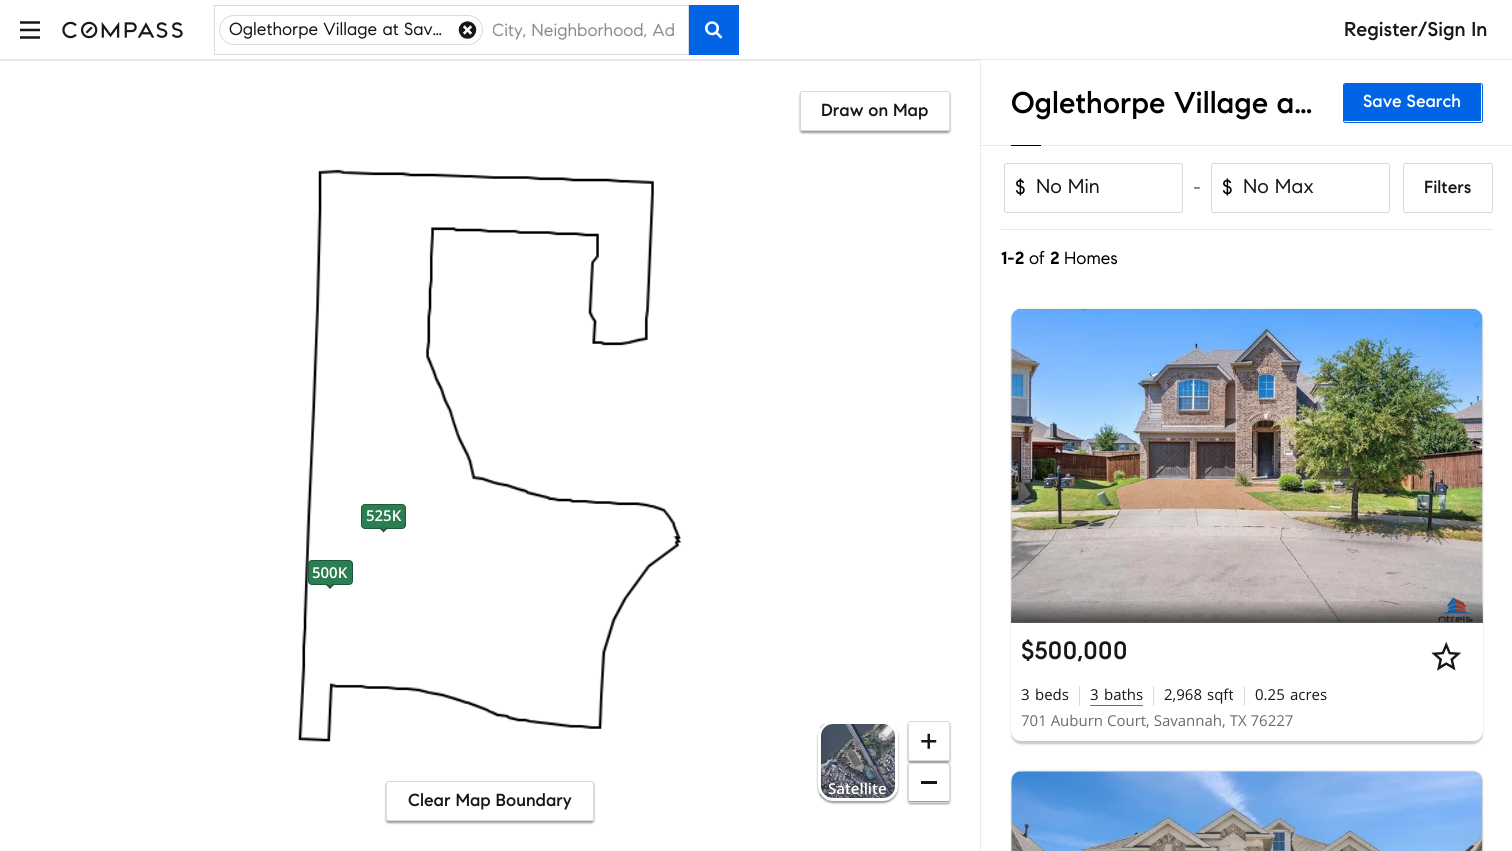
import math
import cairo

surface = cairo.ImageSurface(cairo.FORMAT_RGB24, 1512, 851)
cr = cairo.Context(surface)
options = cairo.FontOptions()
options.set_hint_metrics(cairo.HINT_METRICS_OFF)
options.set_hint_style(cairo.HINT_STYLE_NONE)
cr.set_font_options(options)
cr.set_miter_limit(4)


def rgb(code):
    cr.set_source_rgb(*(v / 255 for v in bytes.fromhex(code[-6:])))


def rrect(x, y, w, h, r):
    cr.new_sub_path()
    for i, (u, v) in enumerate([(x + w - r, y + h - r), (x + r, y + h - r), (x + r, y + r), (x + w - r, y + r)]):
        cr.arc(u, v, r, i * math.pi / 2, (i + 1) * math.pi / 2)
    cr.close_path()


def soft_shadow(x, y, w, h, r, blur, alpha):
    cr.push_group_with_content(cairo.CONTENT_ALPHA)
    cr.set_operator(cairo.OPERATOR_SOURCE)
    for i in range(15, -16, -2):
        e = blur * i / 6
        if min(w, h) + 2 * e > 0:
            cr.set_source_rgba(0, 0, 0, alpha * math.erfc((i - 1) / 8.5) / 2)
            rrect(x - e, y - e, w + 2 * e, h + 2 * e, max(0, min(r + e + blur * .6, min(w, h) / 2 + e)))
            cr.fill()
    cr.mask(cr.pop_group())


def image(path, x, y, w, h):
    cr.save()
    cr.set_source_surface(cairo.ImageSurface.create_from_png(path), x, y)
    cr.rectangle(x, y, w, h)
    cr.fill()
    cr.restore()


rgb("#ffffff")
cr.paint()
rgb("#e6e6e6")
cr.rectangle(0, 59, 1512, 1)
cr.fill()
image("img/1.png", 20, 21, 20, 18)
image("img/2.png", 62, 21, 121, 18)
cr.rectangle(214.5, 5.5, 474, 49)
rgb("#dadada")
cr.set_line_width(1)
cr.stroke()
rrect(219.5, 15.5, 263, 29, 14.5)
cr.stroke()
image("img/3.png", 458, 21, 19, 18)
rgb("#0064e5")
cr.rectangle(689, 5, 50, 50)
cr.fill()
image("img/4.png", 705, 21, 18, 18)
rgb("#ebebeb")
cr.new_path()
cr.move_to(0, 60)
cr.line_to(981, 60)
cr.line_to(980, 61)
cr.line_to(0, 61)
cr.close_path()
cr.fill()
cr.set_source_rgba(0, 0, 0, 0.08)
cr.new_path()
cr.move_to(981, 60)
cr.line_to(981, 851)
cr.line_to(980, 851)
cr.line_to(980, 61)
cr.close_path()
cr.fill()
image("img/5.png", 298, 169, 384, 573)
rgb("#2a7e51")
rrect(361.5, 504.5, 44, 24, 3.5)
cr.fill_preserve()
rgb("#1e5839")
cr.stroke()
cr.new_path()
cr.move_to(378.5, 527.5)
cr.line_to(388.5, 527.5)
cr.line_to(383.5, 532.5)
cr.close_path()
cr.fill()
rgb("#2a7e51")
cr.new_path()
cr.move_to(381, 527.5)
cr.line_to(386, 527.5)
cr.line_to(383.5, 530)
cr.close_path()
cr.fill()
rrect(308.5, 560.5, 44, 24, 3.5)
cr.fill_preserve()
rgb("#1e5839")
cr.stroke()
cr.new_path()
cr.move_to(325, 584)
cr.line_to(335, 584)
cr.line_to(330, 589)
cr.close_path()
cr.fill()
rgb("#2a7e51")
cr.new_path()
cr.move_to(327.5, 584)
cr.line_to(332.5, 584)
cr.line_to(330, 586)
cr.close_path()
cr.fill()
cr.save()
cr.set_fill_rule(cairo.FILL_RULE_EVEN_ODD)
cr.new_path()
cr.move_to(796, 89)
cr.line_to(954, 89)
cr.line_to(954, 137)
cr.line_to(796, 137)
cr.close_path()
cr.move_to(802.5, 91)
cr.line_to(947.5, 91)
cr.curve_to(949, 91, 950, 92, 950, 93.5)
cr.line_to(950, 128.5)
cr.curve_to(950, 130, 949, 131, 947.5, 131)
cr.line_to(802.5, 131)
cr.curve_to(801, 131, 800, 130, 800, 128.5)
cr.line_to(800, 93.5)
cr.curve_to(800, 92, 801, 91, 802.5, 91)
cr.close_path()
cr.clip()
rgb("#000000")
soft_shadow(800, 93, 150, 40, 2.5, 1, 0.4)
cr.restore()
rrect(800.5, 91.5, 149, 39, 2)
rgb("#dadada")
cr.stroke()
rgb("#000000")
soft_shadow(818, 723, 80, 80, 15, 1, 0.4)
image("img/6.png", 820, 723, 75, 76)
rrect(819.5, 722.5, 77, 77, 13.5)
rgb("#ffffff")
cr.set_line_width(3)
cr.stroke()
cr.save()
cr.set_fill_rule(cairo.FILL_RULE_EVEN_ODD)
cr.new_path()
cr.move_to(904, 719)
cr.line_to(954, 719)
cr.line_to(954, 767)
cr.line_to(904, 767)
cr.close_path()
cr.move_to(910.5, 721)
cr.line_to(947.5, 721)
cr.curve_to(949, 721, 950, 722, 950, 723.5)
cr.line_to(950, 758.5)
cr.curve_to(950, 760, 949, 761, 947.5, 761)
cr.line_to(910.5, 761)
cr.curve_to(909, 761, 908, 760, 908, 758.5)
cr.line_to(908, 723.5)
cr.curve_to(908, 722, 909, 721, 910.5, 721)
cr.close_path()
cr.clip()
rgb("#000000")
soft_shadow(908, 723, 42, 40, 2.5, 1, 0.4)
cr.restore()
rrect(908.5, 721.5, 41, 39, 2)
rgb("#dadada")
cr.set_line_width(1)
cr.stroke()
image("img/7.png", 921, 733, 16, 16)
rgb("#000000")
soft_shadow(908, 764, 42, 40, 2.5, 1, 0.4)
rgb("#ffffff")
rrect(909, 764, 40, 37, 1)
cr.fill()
rrect(908.5, 763.5, 41, 39, 2)
rgb("#dadada")
cr.stroke()
rgb("#171717")
cr.rectangle(921, 781, 16, 3)
cr.fill()
cr.save()
cr.set_fill_rule(cairo.FILL_RULE_EVEN_ODD)
cr.new_path()
cr.move_to(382, 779)
cr.line_to(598, 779)
cr.line_to(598, 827)
cr.line_to(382, 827)
cr.close_path()
cr.move_to(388.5, 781)
cr.line_to(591.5, 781)
cr.curve_to(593, 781, 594, 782, 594, 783.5)
cr.line_to(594, 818.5)
cr.curve_to(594, 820, 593, 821, 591.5, 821)
cr.line_to(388.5, 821)
cr.curve_to(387, 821, 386, 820, 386, 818.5)
cr.line_to(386, 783.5)
cr.curve_to(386, 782, 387, 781, 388.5, 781)
cr.close_path()
cr.clip()
rgb("#000000")
soft_shadow(386, 783, 208, 40, 2.5, 1, 0.4)
cr.restore()
rrect(386.5, 781.5, 207, 39, 2)
rgb("#dadada")
cr.stroke()
rgb("#e6e6e6")
cr.rectangle(981, 145, 531, 1)
cr.fill()
rgb("#0064e5")
rrect(1344, 84, 137, 37, 1)
cr.fill()
rrect(1343.5, 83.5, 139, 39, 2)
cr.stroke()
rgb("#000000")
cr.rectangle(1011, 145, 30, 1)
cr.fill()
rrect(1004.5, 163.5, 178, 49, 2)
rgb("#dadada")
cr.stroke()
rrect(1211.5, 163.5, 178, 49, 2)
cr.stroke()
rrect(1403.5, 163.5, 89, 49, 2)
cr.stroke()
rgb("#e6e6e6")
cr.rectangle(1001, 229, 492, 1)
cr.fill()
rgb("#000000")
soft_shadow(1011, 308, 472, 432, 10, 0.5, 0.06)
soft_shadow(1011, 311, 472, 433, 10, 0.5, 0.14)
soft_shadow(1013, 314, 468, 430, 9, 2.5, 0.1)
rgb("#ffffff")
rrect(1011, 309, 472, 432, 10)
cr.fill()
rgb("#dadada")
cr.new_path()
cr.move_to(1021, 309)
cr.line_to(1473, 309)
cr.curve_to(1478.5, 309, 1483, 313.5, 1483, 319)
cr.line_to(1483, 623)
cr.line_to(1011, 623)
cr.line_to(1011, 319)
cr.curve_to(1011, 313.5, 1015.5, 309, 1021, 309)
cr.close_path()
cr.fill()
image("img/8.png", 1011, 309, 472, 314)
gradient = cairo.LinearGradient(1247, 598, 1247, 623)
gradient.add_color_stop_rgba(0.07, 0, 0, 0, 0)
gradient.add_color_stop_rgba(0.93, 0, 0, 0, 0.57)
cr.set_source(gradient)
cr.rectangle(1011, 601, 472, 22)
cr.fill()
image("img/9.png", 1438, 597, 35, 25)
image("img/10.png", 1431, 642, 30, 29)
for x, y, w, h, color in [
    (1079, 686, 1, 20, "#dadada"),
    (1090, 705, 53, 1, "#6c6c6c"),
    (1153, 686, 1, 20, "#dadada"),
    (1244, 686, 1, 20, "#dadada"),
]:
    rgb(color)
    cr.rectangle(x, y, w, h)
    cr.fill()
rgb("#000000")
soft_shadow(1011, 770, 472, 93, 10, 0.5, 0.06)
soft_shadow(1011, 774, 472, 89, 10, 0.5, 0.14)
rgb("#dadada")
cr.new_path()
cr.move_to(1021, 771)
cr.line_to(1473, 771)
cr.curve_to(1478.5, 771, 1483, 775.5, 1483, 781)
cr.line_to(1483, 851)
cr.line_to(1011, 851)
cr.line_to(1011, 781)
cr.curve_to(1011, 775.5, 1015.5, 771, 1021, 771)
cr.close_path()
cr.fill()
image("img/11.png", 1011, 771, 472, 80)
cr.select_font_face("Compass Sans")
cr.set_font_size(17.5)
rgb("#171717")
cr.move_to(229, 35)
cr.show_text("Oglethorpe Village at Sav…")
cr.save()
cr.rectangle(493, 20, 185, 21)
cr.clip()
rgb("#8d8d8d")
cr.move_to(492, 36)
cr.show_text("City, Neighborhood, Ad")
cr.restore()
cr.select_font_face("Compass Sans Medium")
cr.set_font_size(20)
cr.move_to(1344, 36)
cr.show_text("Register/Sign In")
cr.select_font_face("Open Sans SemiBold")
cr.set_font_size(15)
rgb("#ffffff")
cr.move_to(366, 521)
cr.show_text("525K")
cr.move_to(312, 578)
cr.show_text("500K")
cr.select_font_face("Compass Sans Medium")
cr.set_font_size(17.5)
rgb("#171717")
cr.move_to(821, 116)
cr.show_text("Draw on Map")
cr.select_font_face("Open Sans SemiBold")
cr.set_font_size(15)
rgb("#ffffff")
cr.move_to(828, 794)
cr.show_text("Satellite")
cr.select_font_face("Compass Sans Medium")
cr.set_font_size(17.5)
rgb("#171717")
cr.move_to(408, 806)
cr.show_text("Clear Map Boundary")
cr.set_font_size(30)
rgb("#000000")
cr.move_to(1011, 113)
cr.show_text("Oglethorpe Village a…")
cr.set_font_size(17.5)
rgb("#ffffff")
cr.move_to(1363, 107)
cr.show_text("Save Search")
cr.select_font_face("Compass Sans")
cr.set_font_size(20)
rgb("#000000")
cr.move_to(1015, 194)
cr.show_text("$")
rgb("#171717")
cr.move_to(1036, 193)
cr.show_text("No Min")
rgb("#6c6c6c")
cr.move_to(1193, 194)
cr.show_text("-")
rgb("#000000")
cr.move_to(1222, 194)
cr.show_text("$")
rgb("#171717")
cr.move_to(1243, 193)
cr.show_text("No Max")
cr.select_font_face("Compass Sans Medium")
cr.set_font_size(17.5)
cr.move_to(1424, 193)
cr.show_text("Filters")
cr.select_font_face("Compass Sans", cairo.FONT_SLANT_NORMAL, cairo.FONT_WEIGHT_BOLD)
rgb("#000000")
cr.move_to(1001, 264)
cr.show_text("1-2")
cr.select_font_face("Compass Sans")
cr.move_to(1029, 264)
cr.show_text("of")
cr.select_font_face("Compass Sans", cairo.FONT_SLANT_NORMAL, cairo.FONT_WEIGHT_BOLD)
cr.move_to(1050, 264)
cr.show_text("2")
cr.select_font_face("Compass Sans")
cr.move_to(1064, 264)
cr.show_text("Homes")
cr.select_font_face("Compass Sans Medium")
cr.set_font_size(25)
rgb("#171717")
cr.move_to(1021, 659)
cr.show_text("$500,000")
cr.select_font_face("Open Sans")
cr.set_font_size(15)
for x, y, s in [
    (1021, 700, "3"),
    (1035, 700, "beds"),
    (1090, 700, "3"),
    (1104, 700, "baths"),
    (1164, 700, "2,968"),
    (1207, 700, "sqft"),
    (1255, 700, "0.25"),
    (1290, 700, "acres"),
]:
    cr.move_to(x, y)
    cr.show_text(s)
rgb("#6c6c6c")
cr.move_to(1021, 726)
cr.show_text("701 Auburn Court, Savannah, TX 76227")
surface.write_to_png("page.png")
